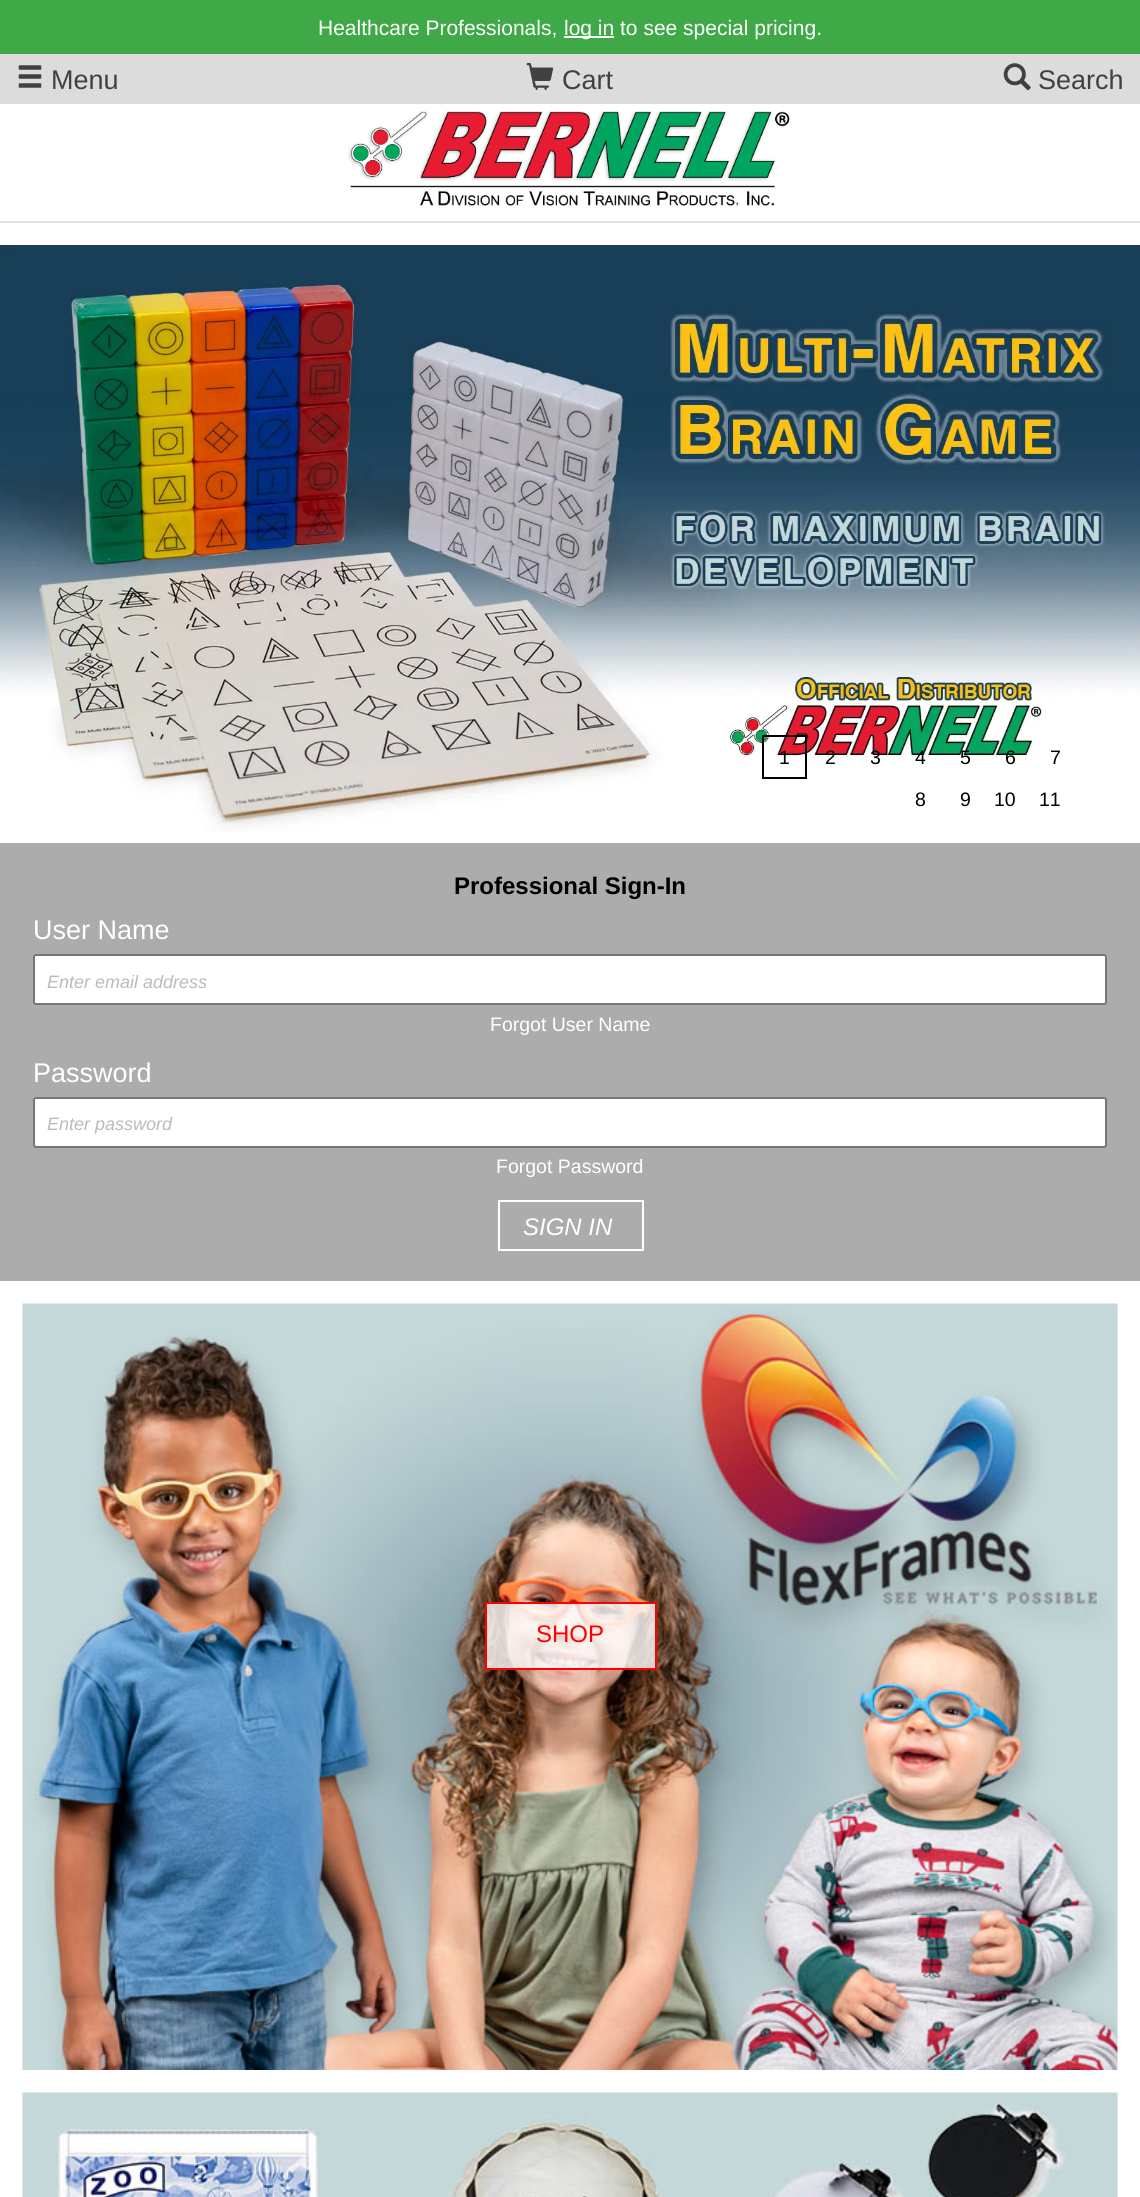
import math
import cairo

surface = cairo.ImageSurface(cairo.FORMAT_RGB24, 1140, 2197)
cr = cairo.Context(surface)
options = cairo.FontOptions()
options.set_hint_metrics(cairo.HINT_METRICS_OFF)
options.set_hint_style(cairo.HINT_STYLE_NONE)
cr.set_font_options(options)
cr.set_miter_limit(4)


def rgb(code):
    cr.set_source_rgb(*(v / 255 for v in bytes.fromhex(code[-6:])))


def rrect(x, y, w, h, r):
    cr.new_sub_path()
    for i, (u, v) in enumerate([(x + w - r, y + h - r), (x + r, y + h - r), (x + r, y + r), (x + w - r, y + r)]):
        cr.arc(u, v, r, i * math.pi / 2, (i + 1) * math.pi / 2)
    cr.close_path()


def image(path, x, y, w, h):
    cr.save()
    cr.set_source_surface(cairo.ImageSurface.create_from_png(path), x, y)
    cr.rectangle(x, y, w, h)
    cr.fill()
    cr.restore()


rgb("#ffffff")
cr.paint()
for x, y, w, h, color in [
    (0, 0, 1140, 54, "#3fa948"),
    (564, 36, 50, 2, "#ffffff"),
    (0, 221, 1140, 2, "#e1e1e1"),
    (0, 54, 1140, 50, "#dcdcdc"),
]:
    rgb(color)
    cr.rectangle(x, y, w, h)
    cr.fill()
image("img/1.png", 18, 65, 24, 23)
image("img/2.png", 526, 63, 28, 27)
image("img/3.png", 1003, 63, 28, 28)
image("img/4.png", 348, 111, 442, 95)
image("img/5.png", 0, 245, 1140, 587)
cr.rectangle(763, 736, 43, 42)
rgb("#000000")
cr.stroke()
rgb("#acacac")
cr.rectangle(0, 843, 1140, 438)
cr.fill()
rgb("#ffffff")
rrect(34, 955, 1072, 49, 2)
cr.fill_preserve()
rgb("#767676")
cr.stroke()
rgb("#ffffff")
rrect(34, 1098, 1072, 49, 2)
cr.fill_preserve()
rgb("#767676")
cr.stroke()
cr.rectangle(499, 1201, 144, 49)
rgb("#ffffff")
cr.stroke()
image("img/6.png", 22, 1303, 1096, 767)
cr.set_source_rgba(1, 1, 1, 0.8)
cr.rectangle(486, 1603, 170, 66)
cr.fill_preserve()
rgb("#ff0000")
cr.stroke()
image("img/7.png", 22, 2092, 1096, 105)
cr.select_font_face("Liberation Sans")
cr.set_font_size(21)
rgb("#ffffff")
cr.move_to(318, 35)
cr.show_text("Healthcare Professionals,")
cr.move_to(564, 35)
cr.show_text("log in to see special pricing.")
cr.set_font_size(27)
rgb("#414141")
for x, y, s in [
    (51, 89, "Menu"),
    (562, 89, "Cart"),
    (1038, 89, "Search"),
]:
    cr.move_to(x, y)
    cr.show_text(s)
cr.set_font_size(19.5)
rgb("#000000")
for x, y, s in [
    (779, 764, "1"),
    (825, 764, "2"),
    (870, 764, "3"),
    (915, 764, "4"),
    (960, 764, "5"),
    (1005, 764, "6"),
    (1050, 764, "7"),
    (915, 806, "8"),
    (960, 806, "9"),
    (994, 806, "10"),
    (1039, 806, "11"),
]:
    cr.move_to(x, y)
    cr.show_text(s)
cr.select_font_face("Liberation Sans", cairo.FONT_SLANT_NORMAL, cairo.FONT_WEIGHT_BOLD)
cr.set_font_size(24)
cr.move_to(454, 894)
cr.show_text("Professional Sign-In")
cr.select_font_face("Liberation Sans")
cr.set_font_size(27)
rgb("#ffffff")
cr.move_to(33, 939)
cr.show_text("User Name")
cr.select_font_face("Liberation Sans", cairo.FONT_SLANT_ITALIC)
cr.set_font_size(18)
rgb("#bbbbbb")
cr.move_to(47, 988)
cr.show_text("Enter email address")
cr.select_font_face("Liberation Sans")
cr.set_font_size(19.5)
rgb("#ffffff")
cr.move_to(490, 1031)
cr.show_text("Forgot User Name")
cr.set_font_size(27)
cr.move_to(33, 1082)
cr.show_text("Password")
cr.select_font_face("Liberation Sans", cairo.FONT_SLANT_ITALIC)
cr.set_font_size(18)
rgb("#bbbbbb")
cr.move_to(47, 1130)
cr.show_text("Enter password")
cr.select_font_face("Liberation Sans")
cr.set_font_size(19.5)
rgb("#ffffff")
cr.move_to(496, 1173)
cr.show_text("Forgot Password")
cr.select_font_face("Liberation Sans", cairo.FONT_SLANT_ITALIC)
cr.set_font_size(24)
cr.move_to(523, 1235)
cr.show_text("SIGN IN")
cr.select_font_face("Liberation Sans")
rgb("#ff0000")
cr.move_to(536, 1642)
cr.show_text("SHOP")
surface.write_to_png("page.png")
